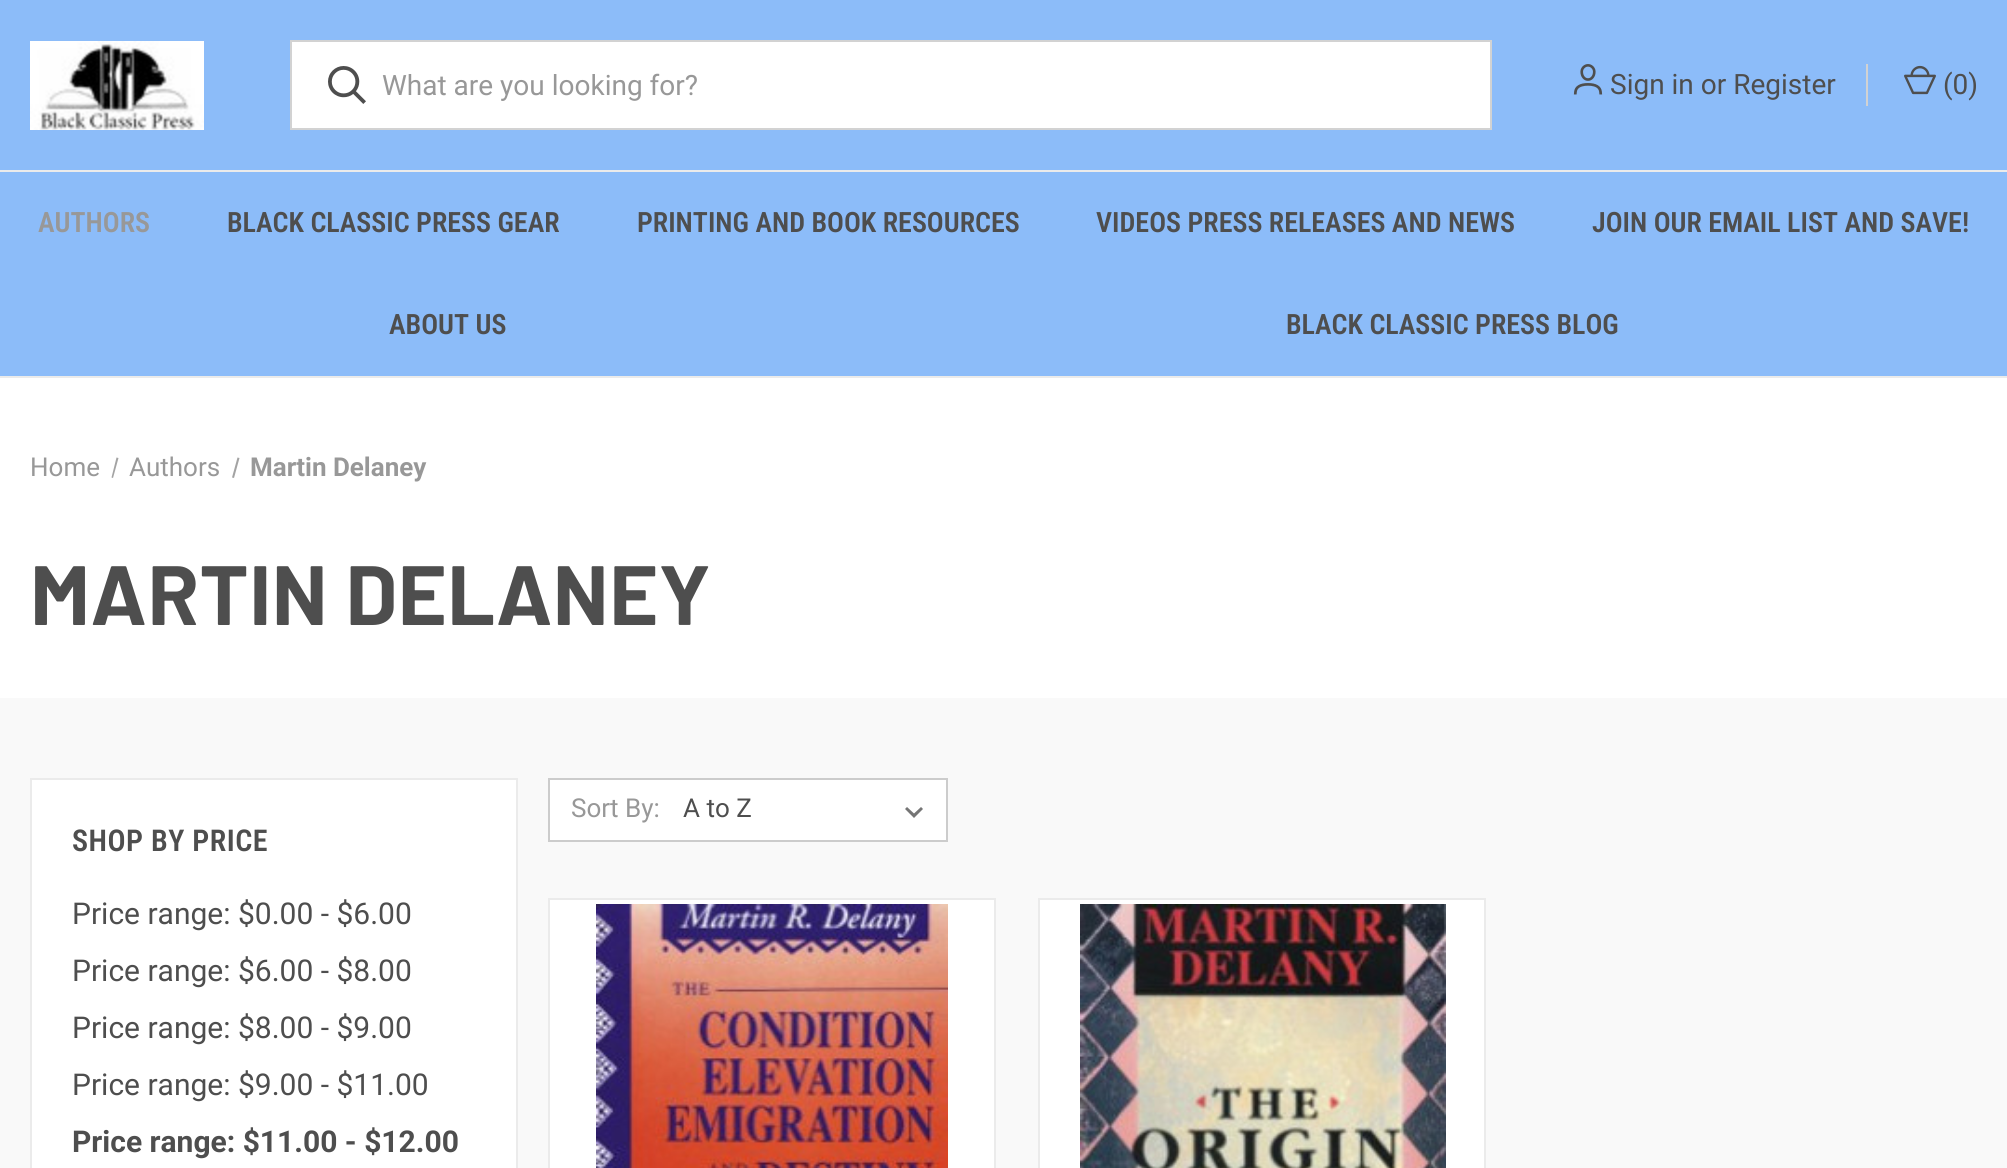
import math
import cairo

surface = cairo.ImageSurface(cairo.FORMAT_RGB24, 2007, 1168)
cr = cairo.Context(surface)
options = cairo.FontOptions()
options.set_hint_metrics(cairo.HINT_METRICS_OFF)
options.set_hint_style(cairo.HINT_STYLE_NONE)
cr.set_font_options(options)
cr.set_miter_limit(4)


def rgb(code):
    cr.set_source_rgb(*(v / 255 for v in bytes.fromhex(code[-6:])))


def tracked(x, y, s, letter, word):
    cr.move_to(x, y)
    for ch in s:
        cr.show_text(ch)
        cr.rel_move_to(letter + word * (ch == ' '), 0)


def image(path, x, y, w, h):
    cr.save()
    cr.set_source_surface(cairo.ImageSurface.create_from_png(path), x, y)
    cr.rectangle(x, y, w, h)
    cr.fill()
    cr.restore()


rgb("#ffffff")
cr.paint()
rgb("#8cbcf9")
cr.rectangle(0, 0, 2007, 376)
cr.fill()
image("img/1.png", 30, 41, 174, 89)
rgb("#ffffff")
cr.rectangle(291, 41, 1200, 88)
cr.fill_preserve()
rgb("#d2d2d2")
cr.stroke()
image("img/2.png", 328, 66, 38, 38)
image("img/3.png", 1573, 64, 30, 31)
cr.rectangle(1866, 64, 2, 42)
cr.fill()
image("img/4.png", 1904, 65, 32, 30)
rgb("#ebebeb")
cr.rectangle(0, 170, 2007, 2)
cr.fill()
cr.rectangle(0, 376, 2007, 2)
cr.fill()
rgb("#a3a3a3")
cr.new_path()
cr.move_to(116.5, 457.5)
cr.line_to(118.5, 458)
cr.line_to(113, 478)
cr.line_to(111.5, 477.5)
cr.close_path()
cr.fill()
cr.new_path()
cr.move_to(237.5, 457.5)
cr.line_to(239.5, 458)
cr.line_to(234, 478)
cr.line_to(232, 477.5)
cr.close_path()
cr.fill()
rgb("#f9f9f9")
cr.rectangle(0, 698, 2007, 470)
cr.fill()
rgb("#ffffff")
cr.rectangle(549, 779, 398, 62)
cr.fill_preserve()
rgb("#cccccc")
cr.stroke()
rgb("#757575")
cr.new_path()
cr.move_to(921, 807)
cr.line_to(914, 813.5)
cr.line_to(907, 807)
cr.line_to(905, 809)
cr.line_to(914, 818)
cr.line_to(923, 809)
cr.close_path()
cr.fill()
rgb("#ffffff")
cr.rectangle(549, 899, 446, 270)
cr.fill_preserve()
rgb("#ebebeb")
cr.stroke()
image("img/5.png", 596, 904, 352, 264)
rgb("#ffffff")
cr.rectangle(1039, 899, 446, 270)
cr.fill_preserve()
rgb("#ebebeb")
cr.stroke()
image("img/6.png", 1080, 904, 366, 264)
rgb("#ffffff")
cr.rectangle(31, 779, 486, 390)
cr.fill_preserve()
rgb("#ebebeb")
cr.stroke()
cr.select_font_face("Roboto")
cr.set_font_size(28)
rgb("#989898")
cr.move_to(382, 95)
cr.show_text("What are you looking for?")
rgb("#4e4e4e")
cr.move_to(1610, 94)
cr.show_text("Sign in or Register")
cr.move_to(1943, 94)
cr.show_text("(0)")
cr.select_font_face("Roboto Condensed SemiBold")
rgb("#989898")
cr.move_to(38, 232)
cr.show_text("AUTHORS")
rgb("#4e4e4e")
for x, y, s in [
    (227, 232, "BLACK CLASSIC PRESS GEAR"),
    (637, 232, "PRINTING AND BOOK RESOURCES"),
    (1096, 232, "VIDEOS PRESS RELEASES AND NEWS"),
    (1592, 232, "JOIN OUR EMAIL LIST AND SAVE!"),
    (389, 334, "ABOUT US"),
    (1286, 334, "BLACK CLASSIC PRESS BLOG"),
]:
    cr.move_to(x, y)
    cr.show_text(s)
cr.select_font_face("Roboto")
cr.set_font_size(26)
rgb("#989898")
cr.move_to(30, 476)
cr.show_text("Home")
cr.move_to(129, 476)
cr.show_text("Authors")
cr.select_font_face("Roboto", cairo.FONT_SLANT_NORMAL, cairo.FONT_WEIGHT_BOLD)
cr.move_to(250, 476)
cr.show_text("Martin Delaney")
cr.select_font_face("Barlow", cairo.FONT_SLANT_NORMAL, cairo.FONT_WEIGHT_BOLD)
cr.set_font_size(84)
rgb("#4e4e4e")
tracked(30, 625, "MARTIN DELANEY", 0.5, 0)
cr.select_font_face("Roboto")
cr.set_font_size(26)
rgb("#989898")
cr.move_to(571, 817)
cr.show_text("Sort By:")
rgb("#4e4e4e")
cr.move_to(683, 817)
cr.show_text("A to Z")
cr.select_font_face("Roboto Condensed SemiBold")
cr.set_font_size(30)
tracked(72, 851, "SHOP BY PRICE", 0.5, 0)
cr.select_font_face("Roboto")
for x, y, s in [
    (72, 924, "Price range: $0.00 - $6.00"),
    (72, 981, "Price range: $6.00 - $8.00"),
    (72, 1038, "Price range: $8.00 - $9.00"),
    (72, 1095, "Price range: $9.00 - $11.00"),
]:
    cr.move_to(x, y)
    cr.show_text(s)
cr.select_font_face("Roboto", cairo.FONT_SLANT_NORMAL, cairo.FONT_WEIGHT_BOLD)
cr.move_to(72, 1152)
cr.show_text("Price range: $11.00 - $12.00")
surface.write_to_png("page.png")
